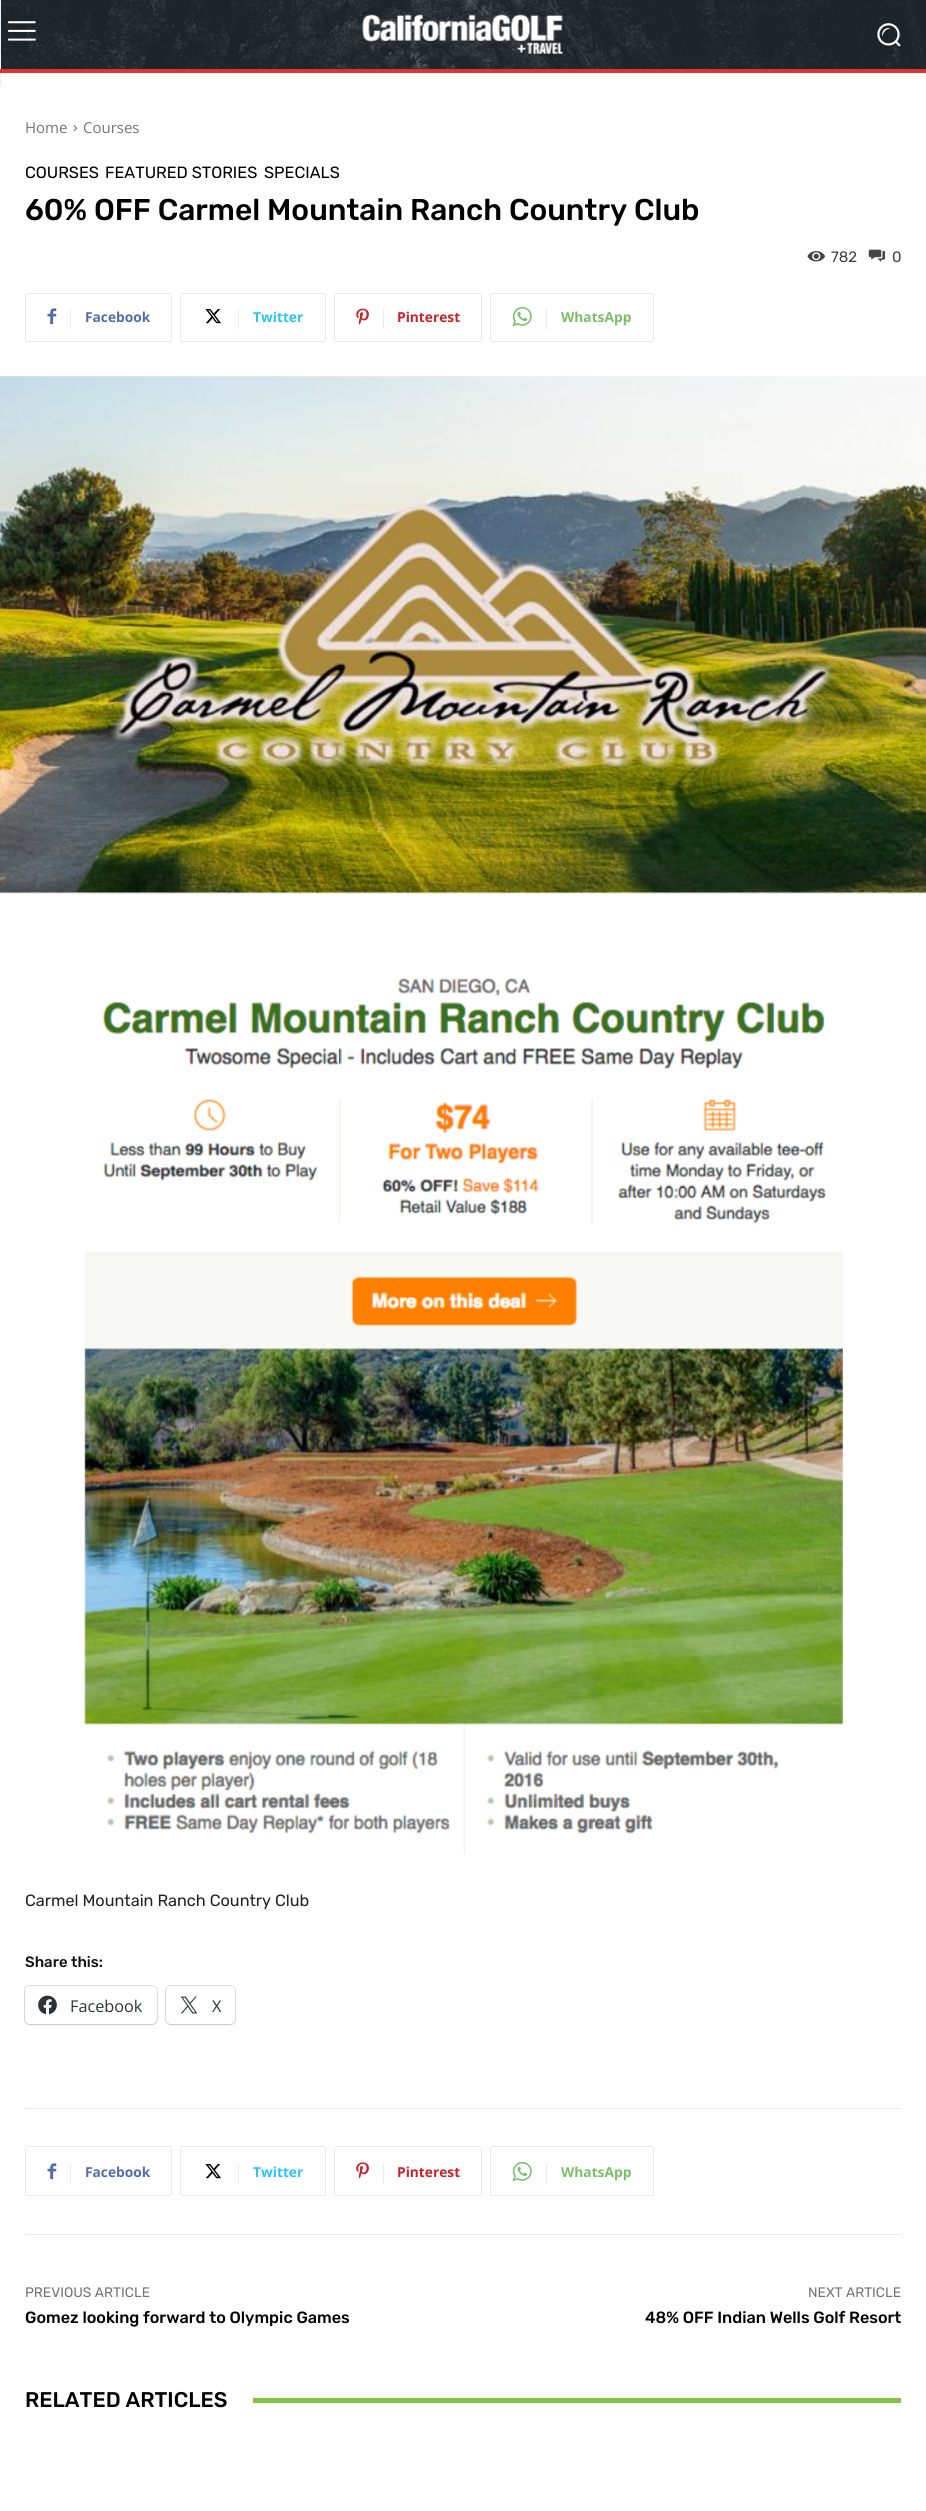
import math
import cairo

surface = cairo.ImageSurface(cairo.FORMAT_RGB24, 926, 2511)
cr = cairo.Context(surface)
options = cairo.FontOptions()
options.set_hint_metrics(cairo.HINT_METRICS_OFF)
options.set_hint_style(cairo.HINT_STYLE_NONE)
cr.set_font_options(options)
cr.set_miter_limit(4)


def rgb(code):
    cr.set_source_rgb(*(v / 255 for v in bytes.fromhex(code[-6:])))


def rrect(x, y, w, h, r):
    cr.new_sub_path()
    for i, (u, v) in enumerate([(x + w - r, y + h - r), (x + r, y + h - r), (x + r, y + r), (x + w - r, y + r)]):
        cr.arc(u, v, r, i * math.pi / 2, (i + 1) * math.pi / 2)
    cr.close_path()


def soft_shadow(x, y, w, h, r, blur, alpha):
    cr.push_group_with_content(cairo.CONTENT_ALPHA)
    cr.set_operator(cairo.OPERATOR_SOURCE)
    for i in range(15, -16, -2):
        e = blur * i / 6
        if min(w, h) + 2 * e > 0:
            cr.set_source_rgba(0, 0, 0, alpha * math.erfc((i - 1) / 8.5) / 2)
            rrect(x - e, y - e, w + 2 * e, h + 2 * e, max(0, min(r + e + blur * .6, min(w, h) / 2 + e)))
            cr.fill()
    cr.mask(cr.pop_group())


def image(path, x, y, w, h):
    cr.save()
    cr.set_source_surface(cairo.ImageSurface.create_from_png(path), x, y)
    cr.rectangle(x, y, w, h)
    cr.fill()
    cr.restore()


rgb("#ffffff")
cr.paint()
image("img/1.png", 0, 0, 1, 85)
rgb("#000000")
soft_shadow(-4, 81, 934, 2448, 0, 6, 0.12)
rgb("#232d35")
cr.rectangle(1, 0, 925, 69)
cr.fill()
image("img/2.png", 0, 0, 926, 69)
image("img/3.png", 7, 21, 29, 20)
image("img/4.png", 362, 14, 201, 40)
image("img/5.png", 877, 23, 24, 24)
for x, y, w, h, color in [
    (0, 69, 926, 4, "#dd3333"),
    (1, 73, 925, 12, "#ffffff"),
    (0, 85, 926, 2426, "#ffffff"),
]:
    rgb(color)
    cr.rectangle(x, y, w, h)
    cr.fill()
image("img/6.png", 73, 125, 5, 7)
image("img/7.png", 807, 251, 18, 11)
image("img/8.png", 868, 249, 17, 13)
rgb("#e9e9e9")
cr.rectangle(25, 294, 1, 47)
cr.fill()
image("img/9.png", 47, 308, 10, 17)
for x, y, w, h, color in [
    (26, 293, 145, 1, "#e9e9e9"),
    (171, 294, 1, 47, "#e9e9e9"),
    (26, 341, 145, 1, "#e9e9e9"),
    (70, 309, 1, 20, "#ebebeb"),
    (180, 294, 1, 47, "#e9e9e9"),
]:
    rgb(color)
    cr.rectangle(x, y, w, h)
    cr.fill()
image("img/10.png", 205, 309, 16, 15)
for x, y, w, h, color in [
    (181, 293, 144, 1, "#e9e9e9"),
    (325, 294, 1, 47, "#e9e9e9"),
    (181, 341, 144, 1, "#e9e9e9"),
    (238, 309, 1, 20, "#ebebeb"),
    (334, 294, 1, 47, "#e9e9e9"),
]:
    rgb(color)
    cr.rectangle(x, y, w, h)
    cr.fill()
image("img/11.png", 356, 308, 13, 17)
for x, y, w, h, color in [
    (335, 293, 146, 1, "#e9e9e9"),
    (481, 294, 1, 47, "#e9e9e9"),
    (335, 341, 146, 1, "#e9e9e9"),
    (383, 309, 1, 20, "#ebebeb"),
    (490, 294, 1, 47, "#e9e9e9"),
]:
    rgb(color)
    cr.rectangle(x, y, w, h)
    cr.fill()
image("img/12.png", 512, 306, 20, 21)
for x, y, w, h, color in [
    (491, 293, 162, 1, "#e9e9e9"),
    (653, 294, 1, 47, "#e9e9e9"),
    (491, 341, 162, 1, "#e9e9e9"),
    (546, 309, 1, 20, "#ebebeb"),
]:
    rgb(color)
    cr.rectangle(x, y, w, h)
    cr.fill()
image("img/13.png", 0, 376, 926, 518)
image("img/14.png", 84, 978, 759, 877)
rrect(24.5, 1985.5, 133, 39, 5.5)
rgb("#e0e0e0")
cr.set_line_width(1)
cr.stroke()
rgb("#000000")
soft_shadow(25, 1988, 131, 37, 5, 1, 0.12)
rgb("#ffffff")
rrect(25, 1986, 131, 38, 5)
cr.fill()
image("img/15.png", 38, 1995, 19, 20)
rrect(165.5, 1985.5, 70, 39, 5.5)
rgb("#e0e0e0")
cr.stroke()
rgb("#000000")
soft_shadow(166, 1988, 69, 37, 5, 1, 0.12)
rgb("#ffffff")
rrect(166, 1986, 69, 38, 5)
cr.fill()
image("img/16.png", 180, 1996, 18, 18)
rgb("#ebebeb")
cr.rectangle(25, 2108, 876, 1)
cr.fill()
rgb("#e9e9e9")
cr.rectangle(25, 2148, 1, 47)
cr.fill()
image("img/9.png", 47, 2163, 10, 17)
for x, y, w, h, color in [
    (26, 2146, 145, 1, "#e9e9e9"),
    (171, 2148, 1, 47, "#e9e9e9"),
    (26, 2195, 145, 1, "#e9e9e9"),
    (70, 2163, 1, 20, "#ebebeb"),
    (180, 2148, 1, 47, "#e9e9e9"),
]:
    rgb(color)
    cr.rectangle(x, y, w, h)
    cr.fill()
image("img/10.png", 205, 2164, 16, 15)
for x, y, w, h, color in [
    (181, 2146, 144, 1, "#e9e9e9"),
    (325, 2148, 1, 47, "#e9e9e9"),
    (181, 2195, 144, 1, "#e9e9e9"),
    (238, 2163, 1, 20, "#ebebeb"),
    (334, 2148, 1, 47, "#e9e9e9"),
]:
    rgb(color)
    cr.rectangle(x, y, w, h)
    cr.fill()
image("img/17.png", 356, 2162, 13, 17)
for x, y, w, h, color in [
    (335, 2146, 146, 1, "#e9e9e9"),
    (481, 2148, 1, 47, "#e9e9e9"),
    (335, 2195, 146, 1, "#e9e9e9"),
    (383, 2163, 1, 20, "#ebebeb"),
    (490, 2148, 1, 47, "#e9e9e9"),
]:
    rgb(color)
    cr.rectangle(x, y, w, h)
    cr.fill()
image("img/12.png", 512, 2161, 20, 21)
for x, y, w, h, color in [
    (491, 2146, 162, 1, "#e9e9e9"),
    (653, 2148, 1, 47, "#e9e9e9"),
    (491, 2195, 162, 1, "#e9e9e9"),
    (546, 2163, 1, 20, "#ebebeb"),
    (25, 2234, 876, 1, "#ebebeb"),
    (253, 2398, 648, 5, "#85c442"),
]:
    rgb(color)
    cr.rectangle(x, y, w, h)
    cr.fill()
cr.select_font_face("Open Sans")
cr.set_font_size(15)
rgb("#747474")
cr.move_to(25, 133)
cr.show_text("Home")
cr.move_to(83, 133)
cr.show_text("Courses")
cr.select_font_face("Rubik")
cr.set_font_size(16.25)
rgb("#000000")
for x, y, s in [
    (25, 178, "COURSES"),
    (105, 178, "FEATURED STORIES"),
    (264, 178, "SPECIALS"),
]:
    cr.move_to(x, y)
    cr.show_text(s)
cr.select_font_face("Rubik Medium")
cr.set_font_size(30)
cr.move_to(25, 220)
cr.show_text("60% OFF Carmel Mountain Ranch Country Club")
cr.select_font_face("Rubik")
cr.set_font_size(15)
rgb("#444444")
cr.move_to(831, 262)
cr.show_text("782")
cr.move_to(892, 262)
cr.show_text("0")
cr.select_font_face("Open Sans", cairo.FONT_SLANT_NORMAL, cairo.FONT_WEIGHT_BOLD)
cr.set_font_size(13.75)
rgb("#516eab")
cr.move_to(85, 322)
cr.show_text("Facebook")
rgb("#29c5f6")
cr.move_to(253, 322)
cr.show_text("Twitter")
rgb("#ca212a")
cr.move_to(397, 322)
cr.show_text("Pinterest")
rgb("#7bbf6a")
cr.move_to(561, 322)
cr.show_text("WhatsApp")
cr.select_font_face("Rubik")
cr.set_font_size(16.25)
rgb("#222222")
cr.move_to(25, 1906)
cr.show_text("Carmel Mountain Ranch Country Club")
cr.select_font_face("Rubik Medium")
cr.set_font_size(15)
rgb("#111111")
cr.move_to(25, 1967)
cr.show_text("Share this:")
cr.select_font_face("Open Sans")
cr.set_font_size(16.25)
rgb("#2c3338")
cr.move_to(70, 2012)
cr.show_text("Facebook")
cr.move_to(212, 2012)
cr.show_text("X")
cr.select_font_face("Open Sans", cairo.FONT_SLANT_NORMAL, cairo.FONT_WEIGHT_BOLD)
cr.set_font_size(13.75)
rgb("#516eab")
cr.move_to(85, 2177)
cr.show_text("Facebook")
rgb("#29c5f6")
cr.move_to(253, 2177)
cr.show_text("Twitter")
rgb("#ca212a")
cr.move_to(397, 2177)
cr.show_text("Pinterest")
rgb("#7bbf6a")
cr.move_to(561, 2177)
cr.show_text("WhatsApp")
cr.select_font_face("Rubik")
rgb("#747474")
cr.move_to(25, 2297)
cr.show_text("PREVIOUS ARTICLE")
cr.select_font_face("Rubik Medium")
cr.set_font_size(16.25)
rgb("#000000")
cr.move_to(25, 2323)
cr.show_text("Gomez looking forward to Olympic Games")
cr.select_font_face("Rubik")
cr.set_font_size(13.75)
rgb("#747474")
cr.move_to(808, 2297)
cr.show_text("NEXT ARTICLE")
cr.select_font_face("Rubik Medium")
cr.set_font_size(16.25)
rgb("#000000")
cr.move_to(645, 2323)
cr.show_text("48% OFF Indian Wells Golf Resort")
cr.set_font_size(21.25)
cr.move_to(25, 2407)
cr.show_text("RELATED ARTICLES")
surface.write_to_png("page.png")
